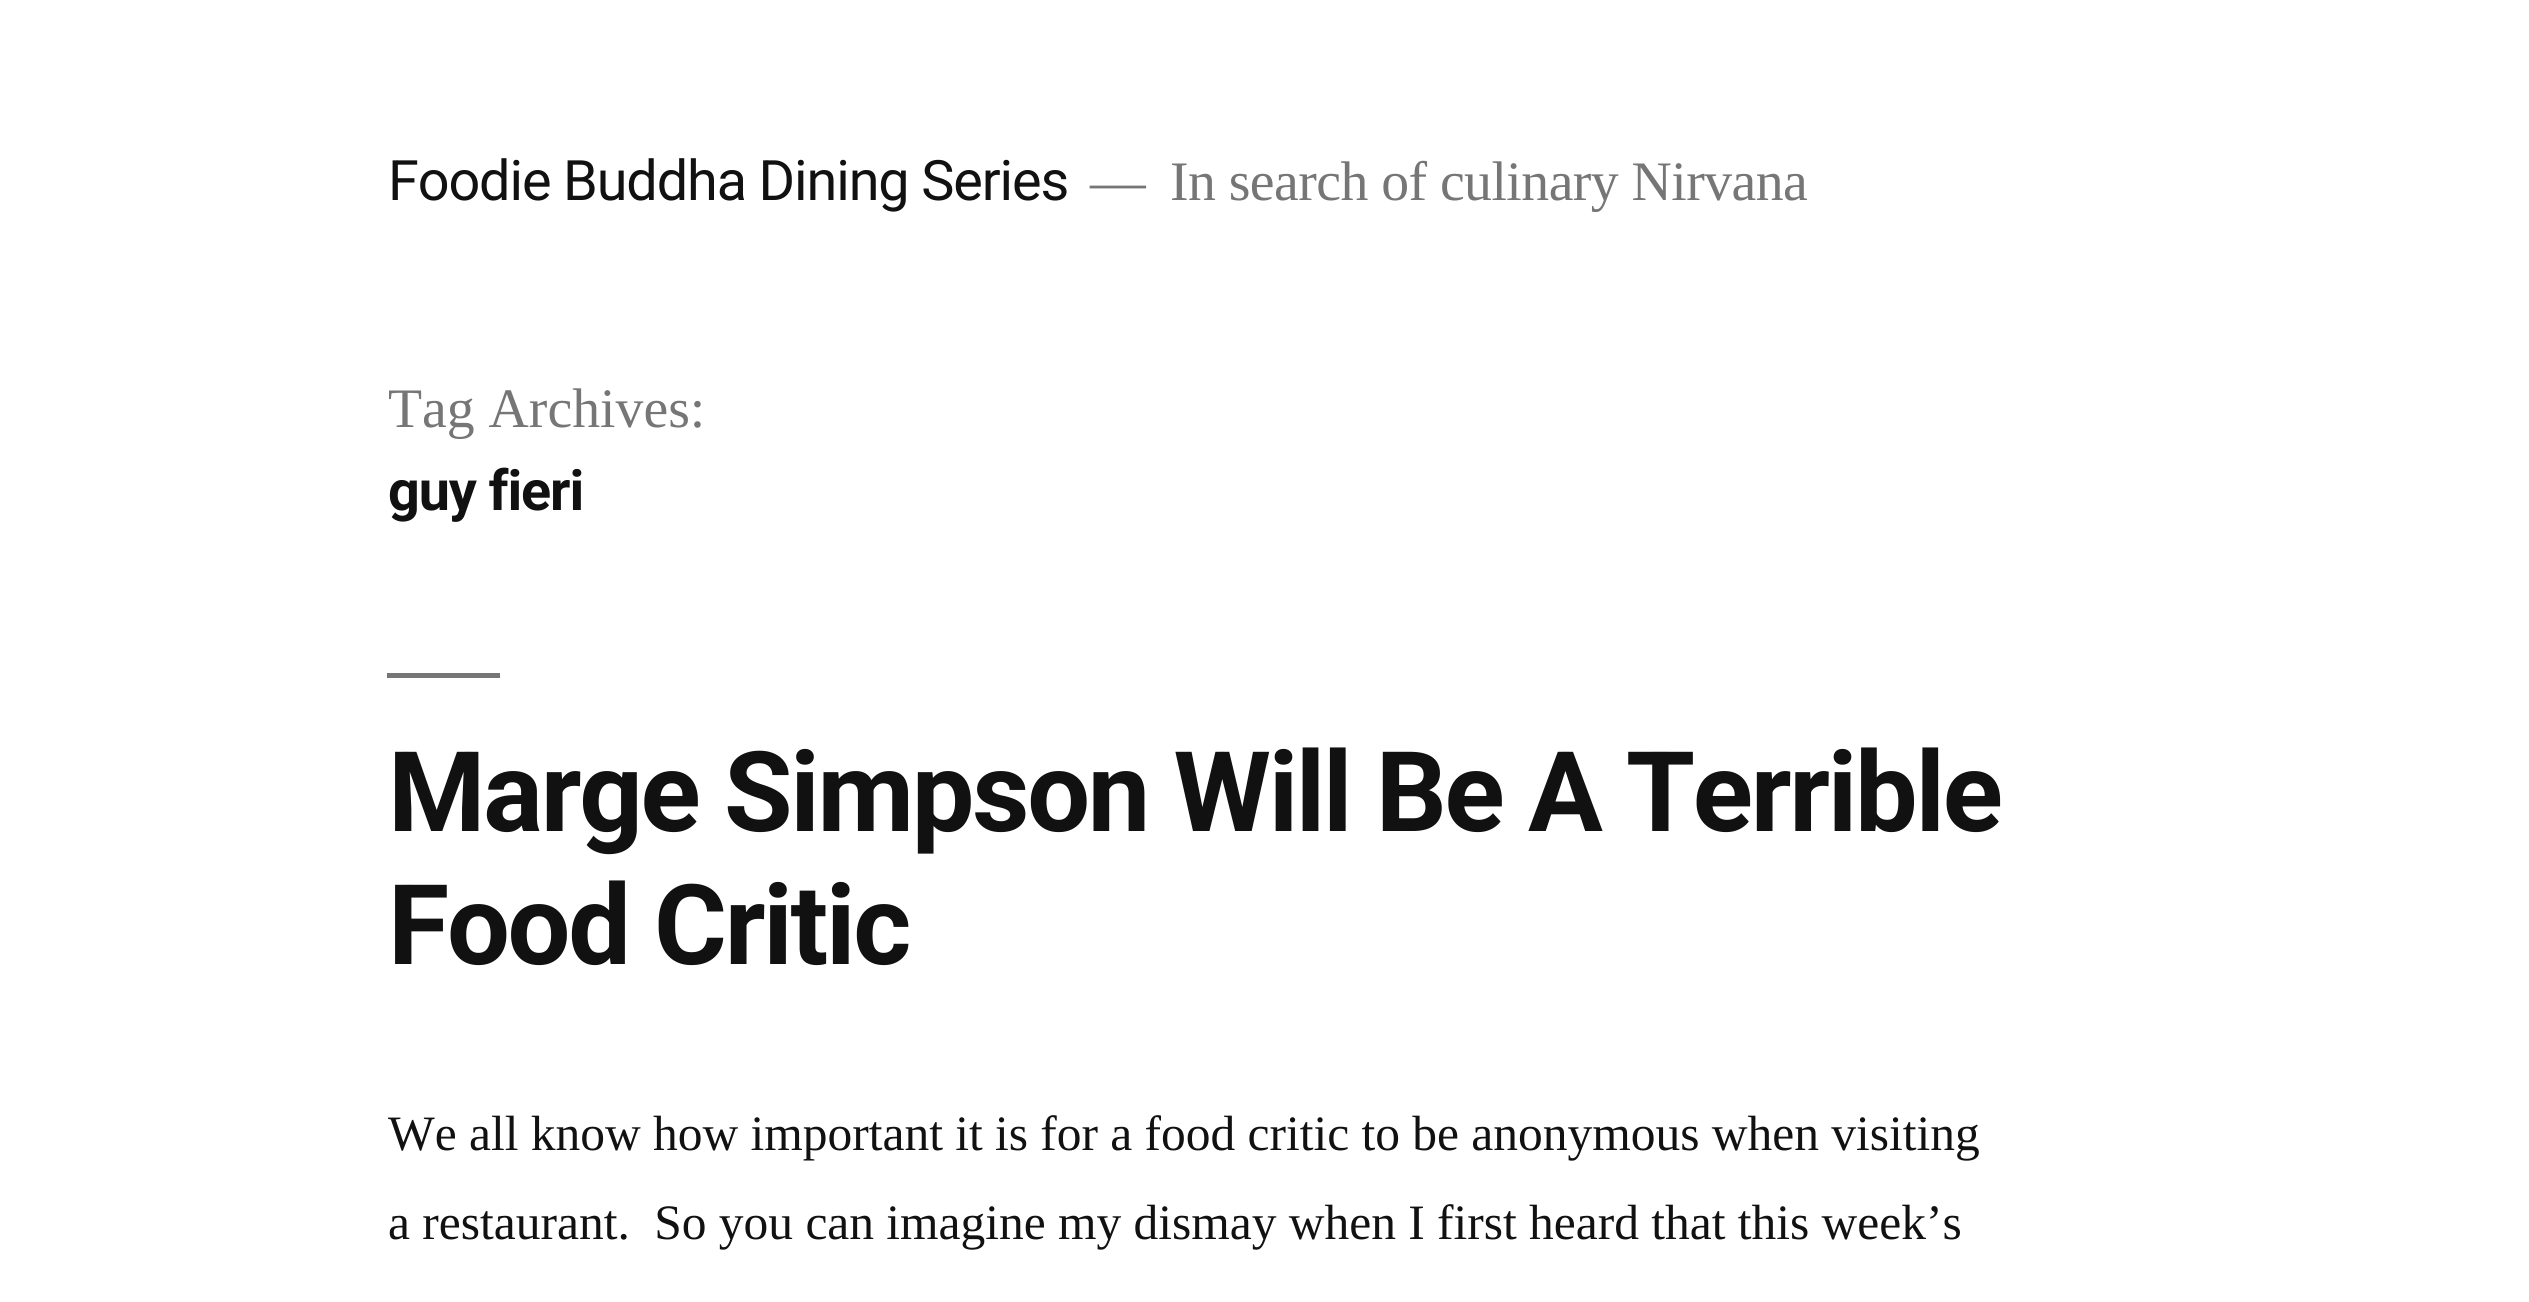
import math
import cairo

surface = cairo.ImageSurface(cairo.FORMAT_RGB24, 2529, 1302)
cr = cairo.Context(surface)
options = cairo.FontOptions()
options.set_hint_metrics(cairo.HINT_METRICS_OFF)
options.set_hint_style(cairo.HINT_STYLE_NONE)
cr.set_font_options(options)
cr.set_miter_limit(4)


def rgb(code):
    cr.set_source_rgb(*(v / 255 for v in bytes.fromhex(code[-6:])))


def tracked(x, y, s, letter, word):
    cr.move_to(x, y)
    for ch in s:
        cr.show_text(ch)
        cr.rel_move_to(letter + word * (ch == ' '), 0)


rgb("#ffffff")
cr.paint()
rgb("#767676")
cr.rectangle(387, 673, 113, 5)
cr.fill()
cr.select_font_face("Roboto")
cr.set_font_size(55.75)
rgb("#111111")
tracked(388, 200, "Foodie Buddha Dining Series", -1.1, 0)
cr.select_font_face("Liberation Serif")
rgb("#767676")
tracked(1090, 200, "—", -0.55, 0)
tracked(1170, 200, "In search of culinary Nirvana", -0.55, 0)
cr.move_to(388, 427)
cr.show_text("Tag Archives:")
cr.select_font_face("Roboto", cairo.FONT_SLANT_NORMAL, cairo.FONT_WEIGHT_BOLD)
rgb("#111111")
tracked(388, 510, "guy fieri", -1.1, 0)
cr.set_font_size(111.4)
tracked(388, 831, "Marge Simpson Will Be A Terrible", -2.25, 0)
tracked(388, 964, "Food Critic", -2.25, 0)
cr.select_font_face("Liberation Serif")
cr.set_font_size(49.5)
tracked(388, 1150, "We all know how important it is for a food critic to be anonymous when visiting", 0, -0.1)
tracked(388, 1239, "a restaurant.  So you can imagine my dismay when I first heard that this week’s", 0, -0.1)
surface.write_to_png("page.png")
